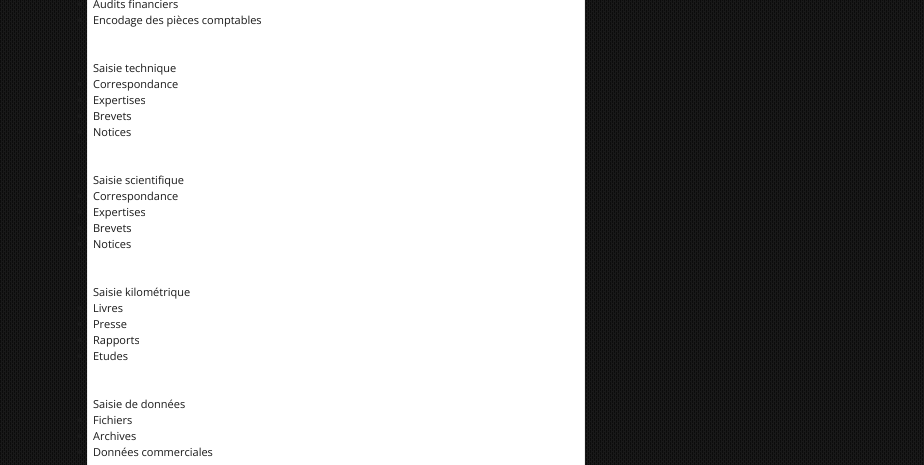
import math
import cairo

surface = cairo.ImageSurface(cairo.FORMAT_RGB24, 924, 465)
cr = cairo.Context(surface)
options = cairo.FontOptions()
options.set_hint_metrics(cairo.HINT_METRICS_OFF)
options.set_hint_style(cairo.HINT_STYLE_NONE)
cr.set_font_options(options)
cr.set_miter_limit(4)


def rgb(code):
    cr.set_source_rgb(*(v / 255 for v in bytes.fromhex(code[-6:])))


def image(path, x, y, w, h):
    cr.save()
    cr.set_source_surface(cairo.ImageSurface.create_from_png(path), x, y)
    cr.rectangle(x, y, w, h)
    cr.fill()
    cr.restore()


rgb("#ffffff")
cr.paint()
image("img/1.png", 0, 0, 924, 465)
rgb("#ffffff")
cr.rectangle(87.5, -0.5, 497, 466)
cr.fill_preserve()
rgb("#ededed")
cr.set_line_width(1)
cr.stroke()
rgb("#1a1a1a")
cr.arc(80, 4, 2, 0, 2 * math.pi)
cr.fill()
cr.arc(80, 20, 2, 0, 2 * math.pi)
cr.fill()
cr.arc(80, 84, 2, 0, 2 * math.pi)
cr.fill()
cr.arc(80, 100, 2, 0, 2 * math.pi)
cr.fill()
cr.arc(80, 116, 2, 0, 2 * math.pi)
cr.fill()
cr.arc(80, 132, 2, 0, 2 * math.pi)
cr.fill()
cr.arc(80, 196, 2, 0, 2 * math.pi)
cr.fill()
cr.arc(80, 212, 2, 0, 2 * math.pi)
cr.fill()
cr.arc(80, 228, 2, 0, 2 * math.pi)
cr.fill()
cr.arc(80, 244, 2, 0, 2 * math.pi)
cr.fill()
cr.arc(80, 308, 2, 0, 2 * math.pi)
cr.fill()
cr.arc(80, 324, 2, 0, 2 * math.pi)
cr.fill()
cr.arc(80, 340, 2, 0, 2 * math.pi)
cr.fill()
cr.arc(80, 356, 2, 0, 2 * math.pi)
cr.fill()
cr.arc(80, 420, 2, 0, 2 * math.pi)
cr.fill()
cr.arc(80, 436, 2, 0, 2 * math.pi)
cr.fill()
cr.arc(80, 452, 2, 0, 2 * math.pi)
cr.fill()
cr.select_font_face("Open Sans")
cr.set_font_size(11)
for x, y, s in [
    (93, 8, "Audits financiers"),
    (93, 24, "Encodage des pièces comptables"),
    (93, 72, "Saisie technique"),
    (93, 88, "Correspondance"),
    (93, 104, "Expertises"),
    (93, 120, "Brevets"),
    (93, 136, "Notices"),
    (93, 184, "Saisie scientifique"),
    (93, 200, "Correspondance"),
    (93, 216, "Expertises"),
    (93, 232, "Brevets"),
    (93, 248, "Notices"),
    (93, 296, "Saisie kilométrique"),
    (93, 312, "Livres"),
    (93, 328, "Presse"),
    (93, 344, "Rapports"),
    (93, 360, "Etudes"),
    (93, 408, "Saisie de données"),
    (93, 424, "Fichiers"),
    (93, 440, "Archives"),
    (93, 456, "Données commerciales"),
]:
    cr.move_to(x, y)
    cr.show_text(s)
surface.write_to_png("page.png")
